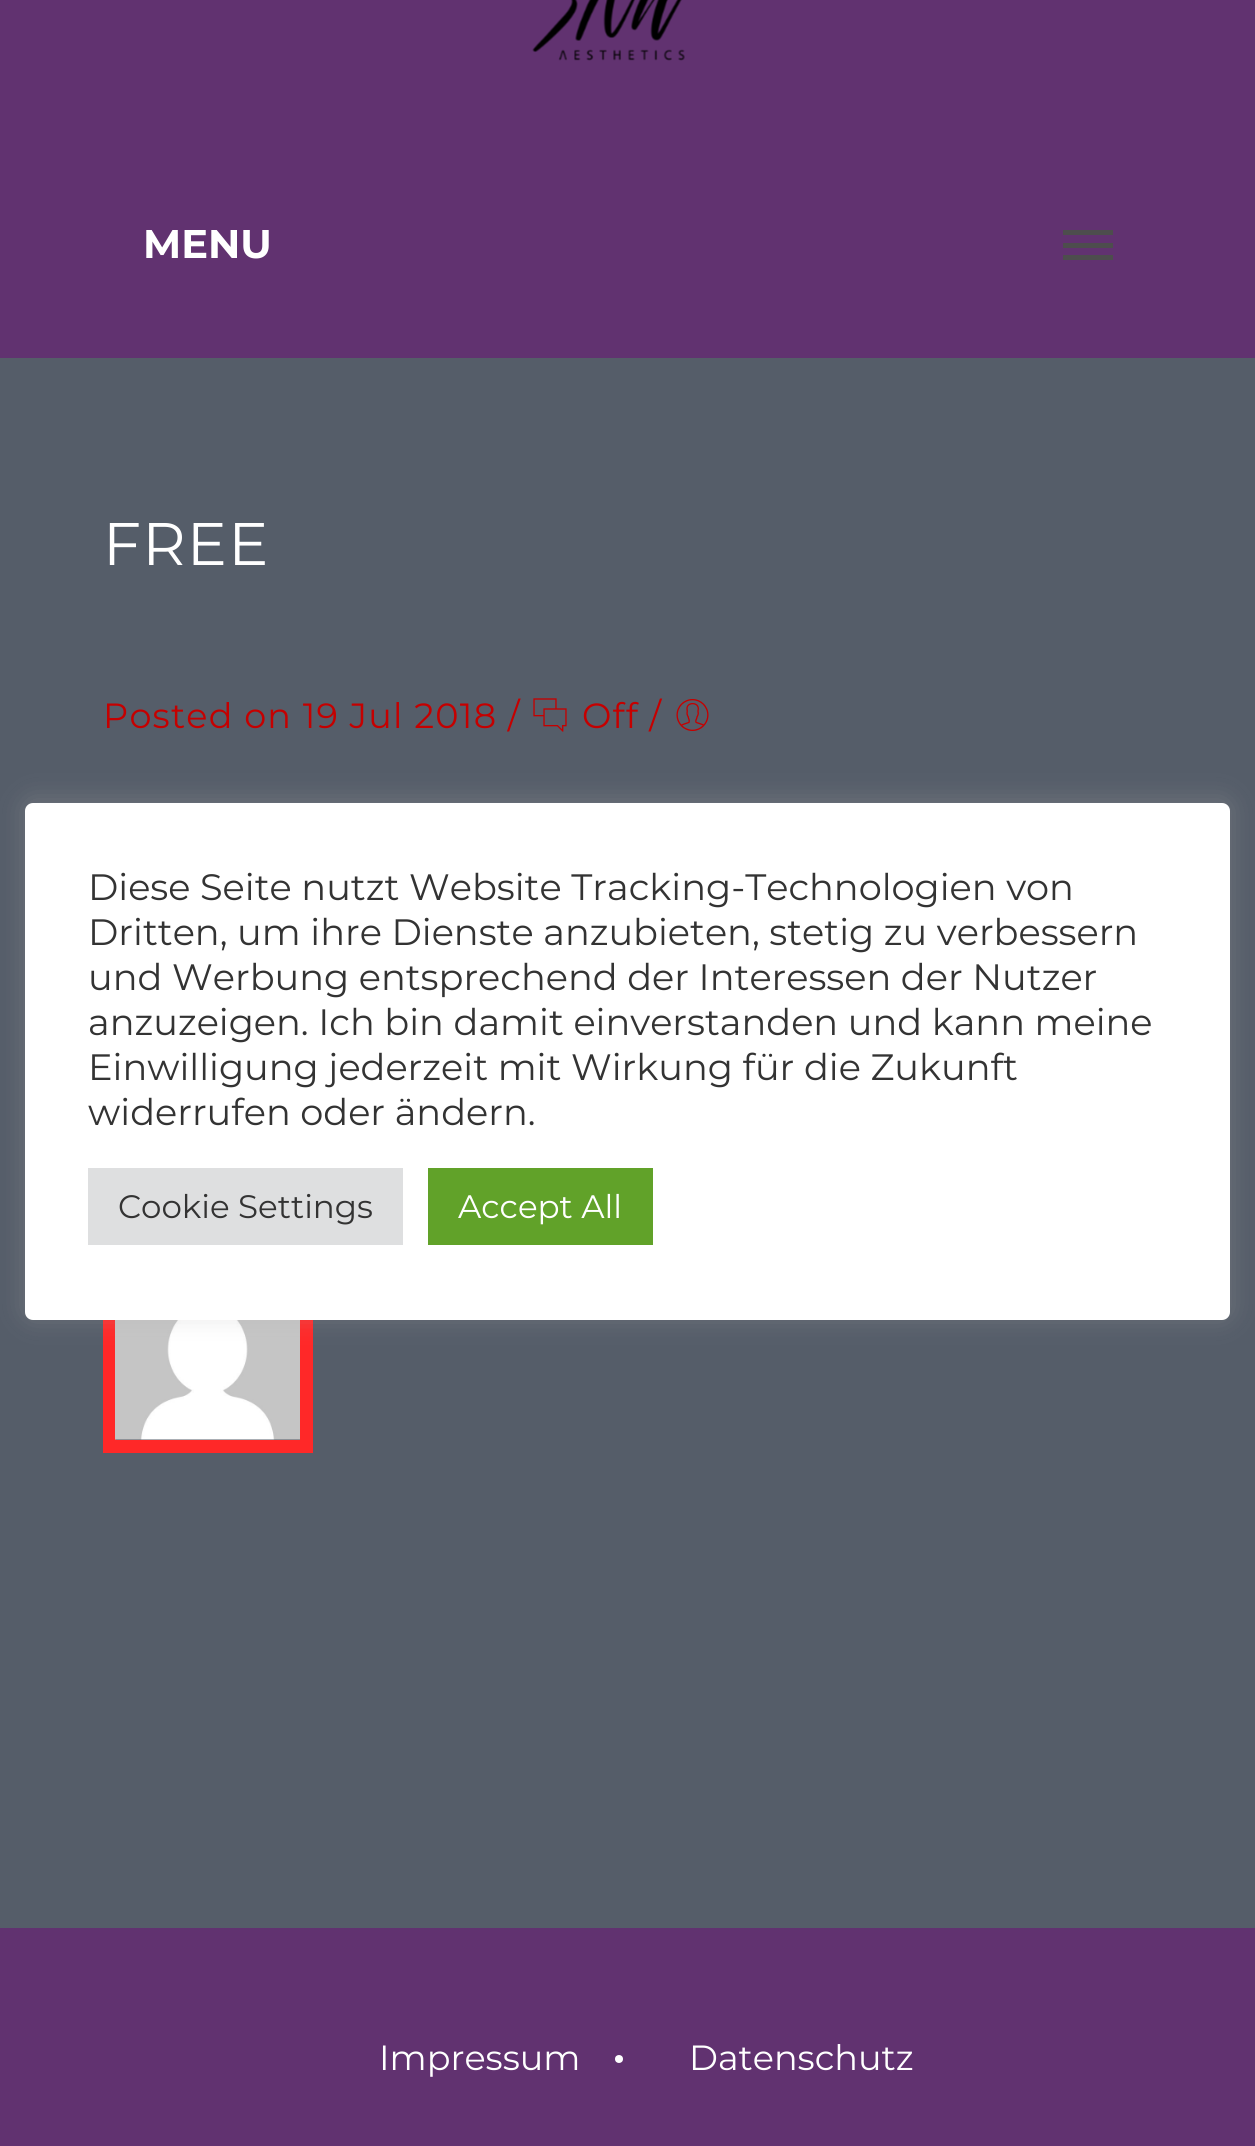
import math
import cairo

surface = cairo.ImageSurface(cairo.FORMAT_RGB24, 1255, 2146)
cr = cairo.Context(surface)
options = cairo.FontOptions()
options.set_hint_metrics(cairo.HINT_METRICS_OFF)
options.set_hint_style(cairo.HINT_STYLE_NONE)
cr.set_font_options(options)
cr.set_miter_limit(4)


def rgb(code):
    cr.set_source_rgb(*(v / 255 for v in bytes.fromhex(code[-6:])))


def tracked(x, y, s, letter, word):
    cr.move_to(x, y)
    for ch in s:
        cr.show_text(ch)
        cr.rel_move_to(letter + word * (ch == ' '), 0)


def rrect(x, y, w, h, r):
    cr.new_sub_path()
    for i, (u, v) in enumerate([(x + w - r, y + h - r), (x + r, y + h - r), (x + r, y + r), (x + w - r, y + r)]):
        cr.arc(u, v, r, i * math.pi / 2, (i + 1) * math.pi / 2)
    cr.close_path()


def soft_shadow(x, y, w, h, r, blur, alpha):
    cr.push_group_with_content(cairo.CONTENT_ALPHA)
    cr.set_operator(cairo.OPERATOR_SOURCE)
    for i in range(15, -16, -2):
        e = blur * i / 6
        if min(w, h) + 2 * e > 0:
            cr.set_source_rgba(0, 0, 0, alpha * math.erfc((i - 1) / 8.5) / 2)
            rrect(x - e, y - e, w + 2 * e, h + 2 * e, max(0, min(r + e + blur * .6, min(w, h) / 2 + e)))
            cr.fill()
    cr.mask(cr.pop_group())


def image(path, x, y, w, h):
    cr.save()
    cr.set_source_surface(cairo.ImageSurface.create_from_png(path), x, y)
    cr.rectangle(x, y, w, h)
    cr.fill()
    cr.restore()


rgb("#555d69")
cr.paint()
rgb("#613270")
cr.rectangle(0, 0, 1255, 358)
cr.fill()
image("img/1.png", 532, 0, 153, 61)
for x, y, w, h, color in [
    (1063, 243, 50, 5, "#4d4d4d"),
    (1063, 230, 50, 5, "#4d4d4d"),
    (1063, 255, 50, 5, "#4d4d4d"),
]:
    rgb(color)
    cr.rectangle(x, y, w, h)
    cr.fill()
image("img/2.png", 533, 698, 34, 34)
image("img/3.png", 676, 699, 33, 32)
cr.rectangle(109.5, 1249.5, 197, 197)
rgb("#ff2828")
cr.set_line_width(13)
cr.stroke()
image("img/4.png", 115, 1320, 185, 120)
rgb("#613270")
cr.rectangle(0, 1928, 1255, 218)
cr.fill()
rgb("#ffffff")
cr.arc(619, 2059, 4, 0, 2 * math.pi)
cr.fill()
rgb("#acabab")
soft_shadow(25, 800, 1205, 518, 8, 12.5, 0.3)
rgb("#ffffff")
rrect(25, 803, 1205, 517, 8)
cr.fill()
rgb("#dedfe0")
cr.rectangle(88, 1168, 315, 77)
cr.fill()
rgb("#61a229")
cr.rectangle(428, 1168, 225, 77)
cr.fill()
cr.select_font_face("Montserrat", cairo.FONT_SLANT_NORMAL, cairo.FONT_WEIGHT_BOLD)
cr.set_font_size(40)
rgb("#ffffff")
cr.move_to(143, 258)
cr.show_text("MENU")
cr.select_font_face("Montserrat")
cr.set_font_size(60)
tracked(103, 565, "FREE", 1.25, 0)
cr.set_font_size(35)
rgb("#c50000")
tracked(103, 728, "Posted on 19 Jul 2018 /", 1.25, 0)
tracked(582, 728, "Off /", 1.25, 0)
rgb("#ffffff")
cr.move_to(379, 2070)
cr.show_text("Impressum")
cr.move_to(689, 2070)
cr.show_text("Datenschutz")
cr.set_font_size(36.7)
rgb("#333333")
for x, y, s in [
    (88, 900, "Diese Seite nutzt Website Tracking-Technologien von"),
    (88, 945, "Dritten, um ihre Dienste anzubieten, stetig zu verbessern"),
    (88, 990, "und Werbung entsprechend der Interessen der Nutzer"),
    (88, 1035, "anzuzeigen. Ich bin damit einverstanden und kann meine"),
    (88, 1080, "Einwilligung jederzeit mit Wirkung für die Zukunft"),
    (88, 1125, "widerrufen oder ändern."),
]:
    cr.move_to(x, y)
    cr.show_text(s)
cr.set_font_size(32.5)
cr.move_to(118, 1218)
cr.show_text("Cookie Settings")
rgb("#ffffff")
cr.move_to(458, 1218)
cr.show_text("Accept All")
surface.write_to_png("page.png")
